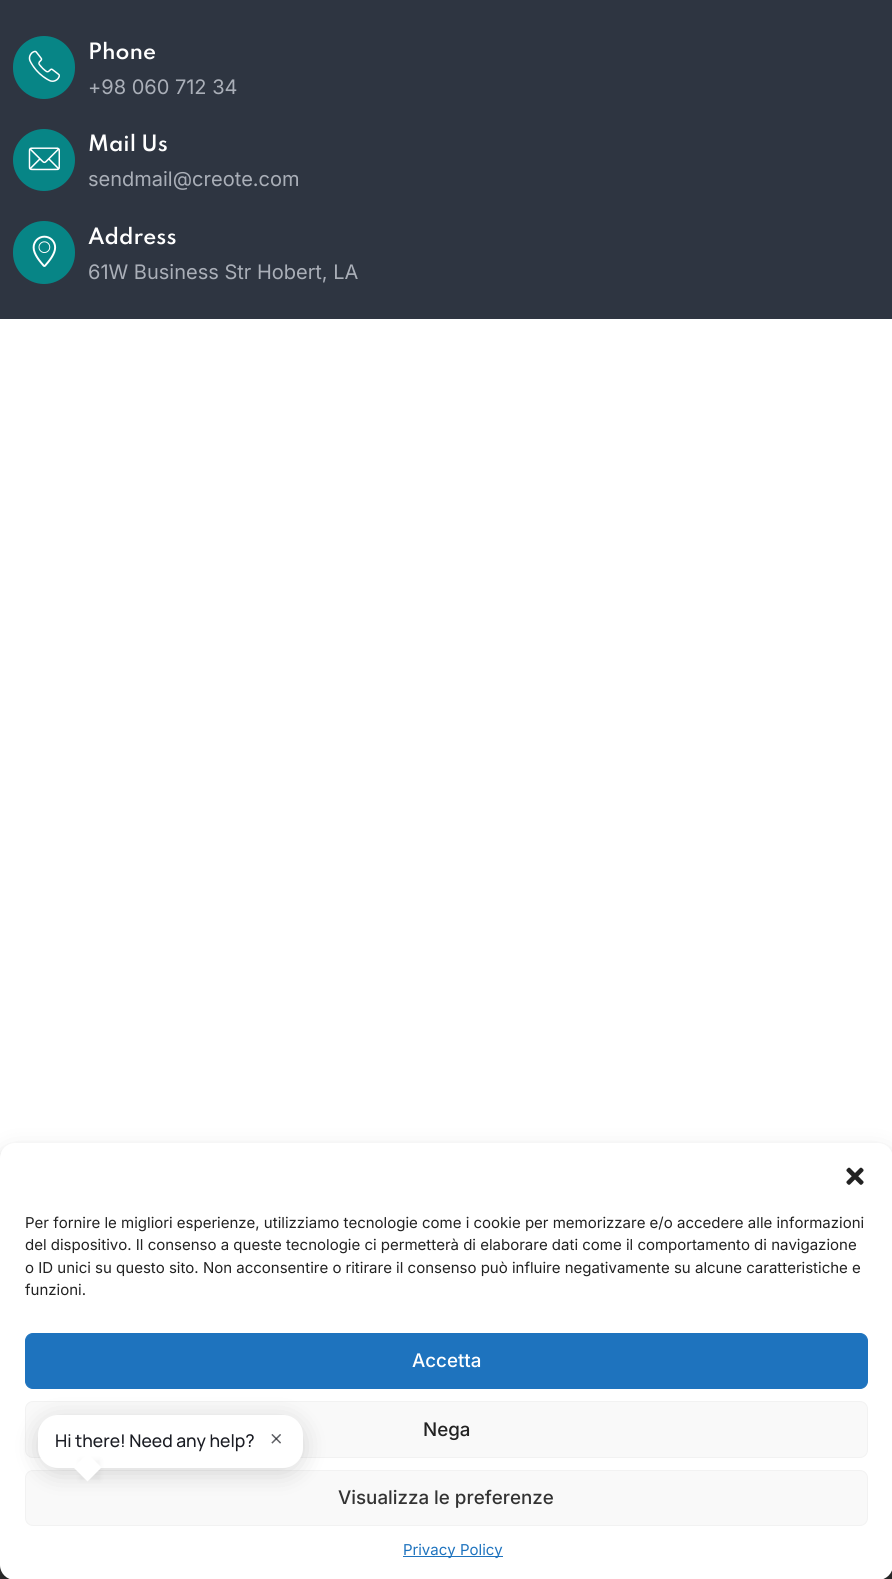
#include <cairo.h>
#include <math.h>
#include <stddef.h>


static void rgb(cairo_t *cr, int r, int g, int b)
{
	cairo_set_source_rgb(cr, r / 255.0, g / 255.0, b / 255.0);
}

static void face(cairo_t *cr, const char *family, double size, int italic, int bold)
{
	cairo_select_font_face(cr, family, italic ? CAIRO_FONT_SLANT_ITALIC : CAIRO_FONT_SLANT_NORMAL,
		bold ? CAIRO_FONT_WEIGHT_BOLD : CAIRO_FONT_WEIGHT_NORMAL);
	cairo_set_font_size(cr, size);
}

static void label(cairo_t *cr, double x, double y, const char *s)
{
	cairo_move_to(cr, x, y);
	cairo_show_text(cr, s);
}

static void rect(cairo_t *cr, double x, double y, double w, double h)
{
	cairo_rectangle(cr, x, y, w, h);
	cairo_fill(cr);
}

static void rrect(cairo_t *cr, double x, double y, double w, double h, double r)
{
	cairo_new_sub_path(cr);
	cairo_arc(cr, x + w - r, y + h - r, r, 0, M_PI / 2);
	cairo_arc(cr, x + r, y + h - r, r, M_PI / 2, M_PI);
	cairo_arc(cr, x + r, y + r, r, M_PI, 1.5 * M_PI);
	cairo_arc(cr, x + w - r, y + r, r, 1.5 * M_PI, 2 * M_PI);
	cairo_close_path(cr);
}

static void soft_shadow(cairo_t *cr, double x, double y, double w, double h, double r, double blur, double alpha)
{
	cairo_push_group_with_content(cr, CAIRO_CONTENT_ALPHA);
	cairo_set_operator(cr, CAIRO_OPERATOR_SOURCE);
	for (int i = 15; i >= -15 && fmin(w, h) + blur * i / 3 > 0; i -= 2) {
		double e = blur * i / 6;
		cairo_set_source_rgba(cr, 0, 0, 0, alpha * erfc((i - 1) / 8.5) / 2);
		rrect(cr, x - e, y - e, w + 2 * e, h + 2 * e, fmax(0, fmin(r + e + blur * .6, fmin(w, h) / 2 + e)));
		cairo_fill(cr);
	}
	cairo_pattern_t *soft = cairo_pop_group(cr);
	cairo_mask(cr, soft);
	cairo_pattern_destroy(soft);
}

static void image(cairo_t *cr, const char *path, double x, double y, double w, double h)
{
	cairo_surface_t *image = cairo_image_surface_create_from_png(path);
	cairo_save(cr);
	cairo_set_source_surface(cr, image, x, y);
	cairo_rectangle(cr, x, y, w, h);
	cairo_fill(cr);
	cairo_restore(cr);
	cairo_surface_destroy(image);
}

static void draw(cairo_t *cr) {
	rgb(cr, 255, 255, 255);
	cairo_paint(cr);
	rgb(cr, 46, 53, 65);
	rect(cr, 0, 0, 892, 319);
	rgb(cr, 7, 133, 134);
	rrect(cr, 13, 36, 62, 63, 31);
	cairo_fill(cr);
	image(cr, "image0.png", 28, 50, 32, 32);
	face(cr, "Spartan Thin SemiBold", 20, 0, 0);
	rgb(cr, 255, 255, 255);
	label(cr, 88, 59, "Phone");
	face(cr, "Inter", 20, 0, 0);
	rgb(cr, 170, 175, 184);
	label(cr, 88, 94, "+98 060 712 34");
	rgb(cr, 7, 133, 134);
	cairo_new_path(cr);
	cairo_arc(cr, 44, 160, 31, 0, 2 * M_PI);
	cairo_fill(cr);
	image(cr, "image1.png", 28, 147, 32, 24);
	face(cr, "Spartan Thin SemiBold", 20, 0, 0);
	rgb(cr, 255, 255, 255);
	label(cr, 88, 151, "Mail Us");
	face(cr, "Inter", 20, 0, 0);
	rgb(cr, 170, 175, 184);
	label(cr, 88, 186, "sendmail@creote.com");
	rgb(cr, 7, 133, 134);
	rrect(cr, 13, 221, 62, 63, 31);
	cairo_fill(cr);
	image(cr, "image2.png", 32, 235, 25, 32);
	face(cr, "Spartan Thin SemiBold", 20, 0, 0);
	rgb(cr, 255, 255, 255);
	label(cr, 88, 244, "Address");
	face(cr, "Inter", 20, 0, 0);
	rgb(cr, 170, 175, 184);
	label(cr, 88, 279, "61W Business Str Hobert, LA");
	rgb(cr, 51, 51, 51);
	rect(cr, 0, 1565, 892, 14);
	rgb(cr, 0, 0, 0);
	soft_shadow(cr, 0, 1150, 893, 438, 15, 4, 0.23);
	soft_shadow(cr, 0, 1155, 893, 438, 15, 12.5, 0.19);
	rgb(cr, 255, 255, 255);
	rrect(cr, 0, 1143, 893, 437, 15);
	cairo_fill(cr);
	image(cr, "image3.png", 846, 1167, 18, 18);
	face(cr, "Inter", 15, 0, 0);
	rgb(cr, 34, 34, 34);
	label(cr, 25, 1228, "Per fornire le migliori esperienze, utilizziamo tecnologie come i cookie per memorizzare e/o accedere alle informazioni");
	label(cr, 25, 1250, "del dispositivo. Il consenso a queste tecnologie ci permetterà di elaborare dati come il comportamento di navigazione");
	label(cr, 25, 1273, "o ID unici su questo sito. Non acconsentire o ritirare il consenso può influire negativamente su alcune caratteristiche e");
	label(cr, 25, 1295, "funzioni.");
	rgb(cr, 30, 115, 190);
	rrect(cr, 25.5, 1333.5, 842, 55, 7.5);
	cairo_fill_preserve(cr);
	cairo_set_line_width(cr, 1);
	cairo_stroke(cr);
	face(cr, "Inter Medium", 18.75, 0, 0);
	rgb(cr, 255, 255, 255);
	label(cr, 412, 1367, "Accetta");
	rgb(cr, 249, 249, 249);
	rrect(cr, 25.5, 1401.5, 842, 56, 7.5);
	cairo_fill_preserve(cr);
	rgb(cr, 242, 242, 242);
	cairo_stroke(cr);
	rgb(cr, 34, 34, 34);
	label(cr, 423, 1436, "Nega");
	rgb(cr, 249, 249, 249);
	rrect(cr, 25.5, 1470.5, 842, 55, 7.5);
	cairo_fill_preserve(cr);
	rgb(cr, 242, 242, 242);
	cairo_stroke(cr);
	rgb(cr, 51, 51, 51);
	label(cr, 338, 1504, "Visualizza le preferenze");
	rgb(cr, 30, 115, 190);
	rect(cr, 403, 1556, 100, 1);
	face(cr, "Inter", 15, 0, 0);
	label(cr, 403, 1555, "Privacy Policy");
	rgb(cr, 0, 0, 0);
	soft_shadow(cr, 38, 1420, 265, 53, 20, 12.5, 0.15);
	rgb(cr, 255, 255, 255);
	rrect(cr, 38, 1415, 265, 53, 20);
	cairo_fill(cr);
	rgb(cr, 0, 0, 0);
	soft_shadow(cr, 80, 1460, 20, 20, 0, 2.5, 0.05);
	face(cr, "Manrope Medium", 17.5, 0, 0);
	rgb(cr, 26, 28, 35);
	label(cr, 55, 1447, "Hi there! Need any help?");
	image(cr, "image4.png", 271, 1434, 10, 10);
	rgb(cr, 255, 255, 255);
	cairo_new_path(cr);
	cairo_move_to(cr, 87.5, 1453.5);
	cairo_line_to(cr, 101.5, 1467.5);
	cairo_line_to(cr, 87.5, 1481.5);
	cairo_line_to(cr, 73.5, 1467.5);
	cairo_close_path(cr);
	cairo_fill(cr);
}

int main(void) {
	cairo_surface_t *surface = cairo_image_surface_create(CAIRO_FORMAT_RGB24, 892, 1579);
	cairo_t *cr = cairo_create(surface);
	cairo_font_options_t *options = cairo_font_options_create();
	cairo_font_options_set_hint_metrics(options, CAIRO_HINT_METRICS_OFF);
	cairo_font_options_set_hint_style(options, CAIRO_HINT_STYLE_NONE);
	cairo_set_font_options(cr, options);
	cairo_set_miter_limit(cr, 4);
	draw(cr);
	cairo_surface_write_to_png(surface, "render.png");
	cairo_font_options_destroy(options);
	cairo_destroy(cr);
	cairo_surface_destroy(surface);
	return 0;
}
